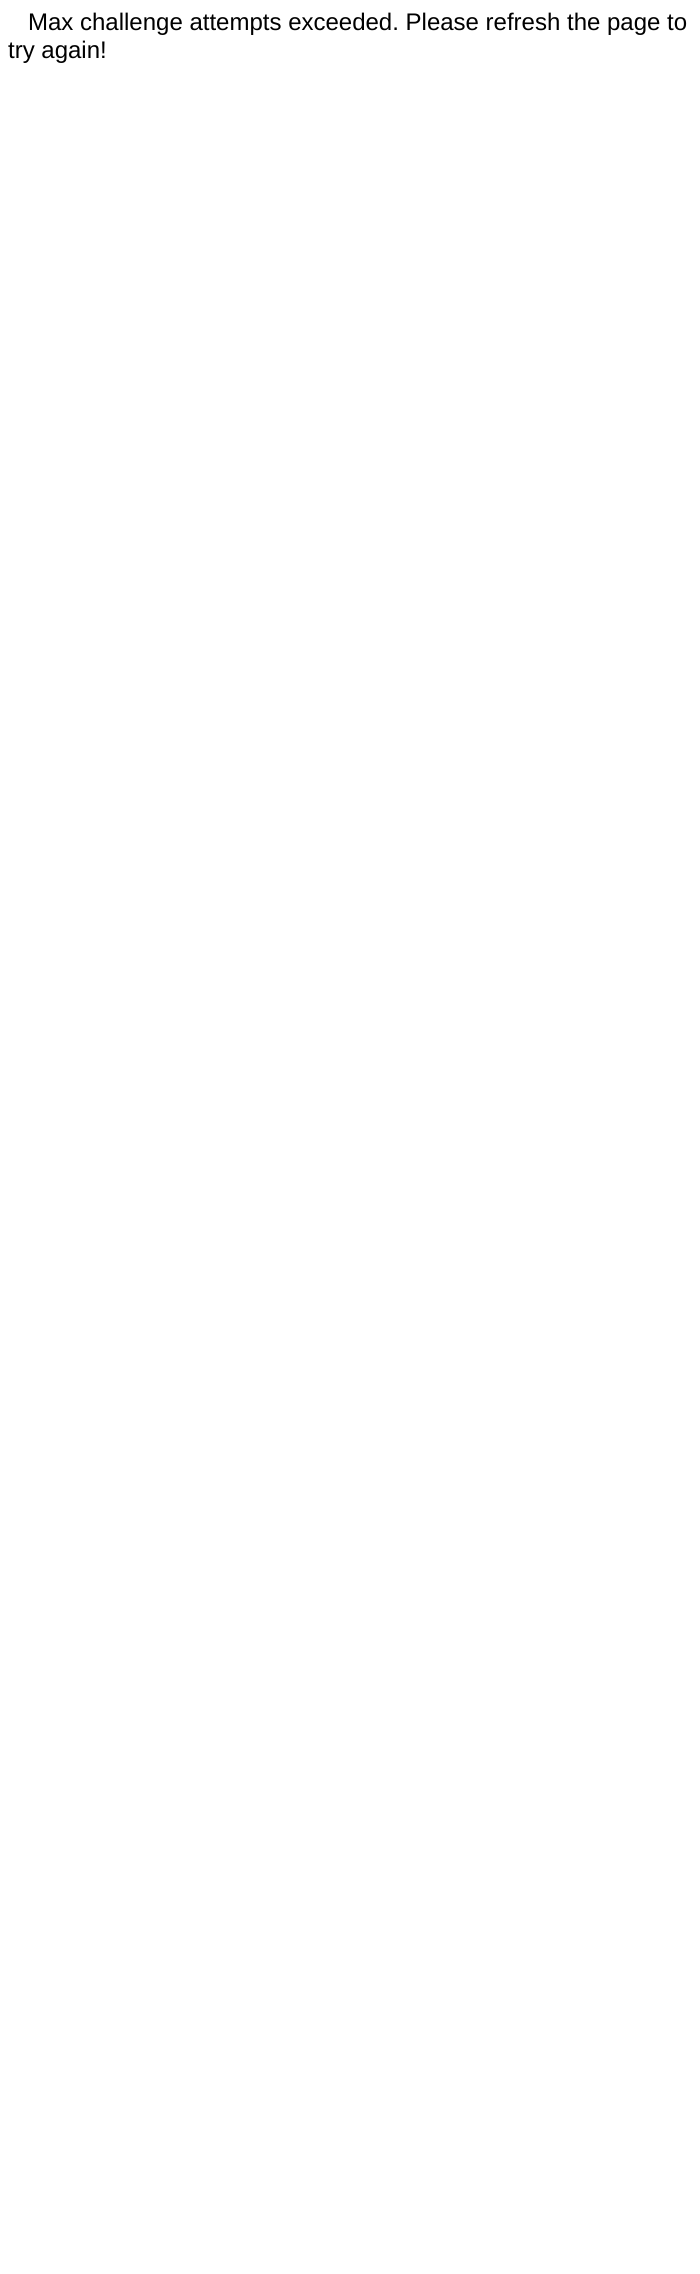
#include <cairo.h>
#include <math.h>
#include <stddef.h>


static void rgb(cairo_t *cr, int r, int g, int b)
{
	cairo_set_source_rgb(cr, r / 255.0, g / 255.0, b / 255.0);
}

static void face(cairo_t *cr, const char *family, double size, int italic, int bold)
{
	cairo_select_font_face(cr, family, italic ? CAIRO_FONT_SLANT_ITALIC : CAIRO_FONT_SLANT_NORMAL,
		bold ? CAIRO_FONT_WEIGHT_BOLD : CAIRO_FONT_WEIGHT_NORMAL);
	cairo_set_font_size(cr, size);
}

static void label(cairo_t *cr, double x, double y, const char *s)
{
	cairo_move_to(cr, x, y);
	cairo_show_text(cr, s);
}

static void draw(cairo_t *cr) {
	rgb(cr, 255, 255, 255);
	cairo_paint(cr);
	face(cr, "Liberation Sans", 24, 0, 0);
	rgb(cr, 0, 0, 0);
	label(cr, 28, 30, "Max challenge attempts exceeded. Please refresh the page to");
	label(cr, 8, 58, "try again!");
}

int main(void) {
	cairo_surface_t *surface = cairo_image_surface_create(CAIRO_FORMAT_RGB24, 700, 2274);
	cairo_t *cr = cairo_create(surface);
	cairo_font_options_t *options = cairo_font_options_create();
	cairo_font_options_set_hint_metrics(options, CAIRO_HINT_METRICS_OFF);
	cairo_font_options_set_hint_style(options, CAIRO_HINT_STYLE_NONE);
	cairo_set_font_options(cr, options);
	cairo_set_miter_limit(cr, 4);
	draw(cr);
	cairo_surface_write_to_png(surface, "render.png");
	cairo_font_options_destroy(options);
	cairo_destroy(cr);
	cairo_surface_destroy(surface);
	return 0;
}
